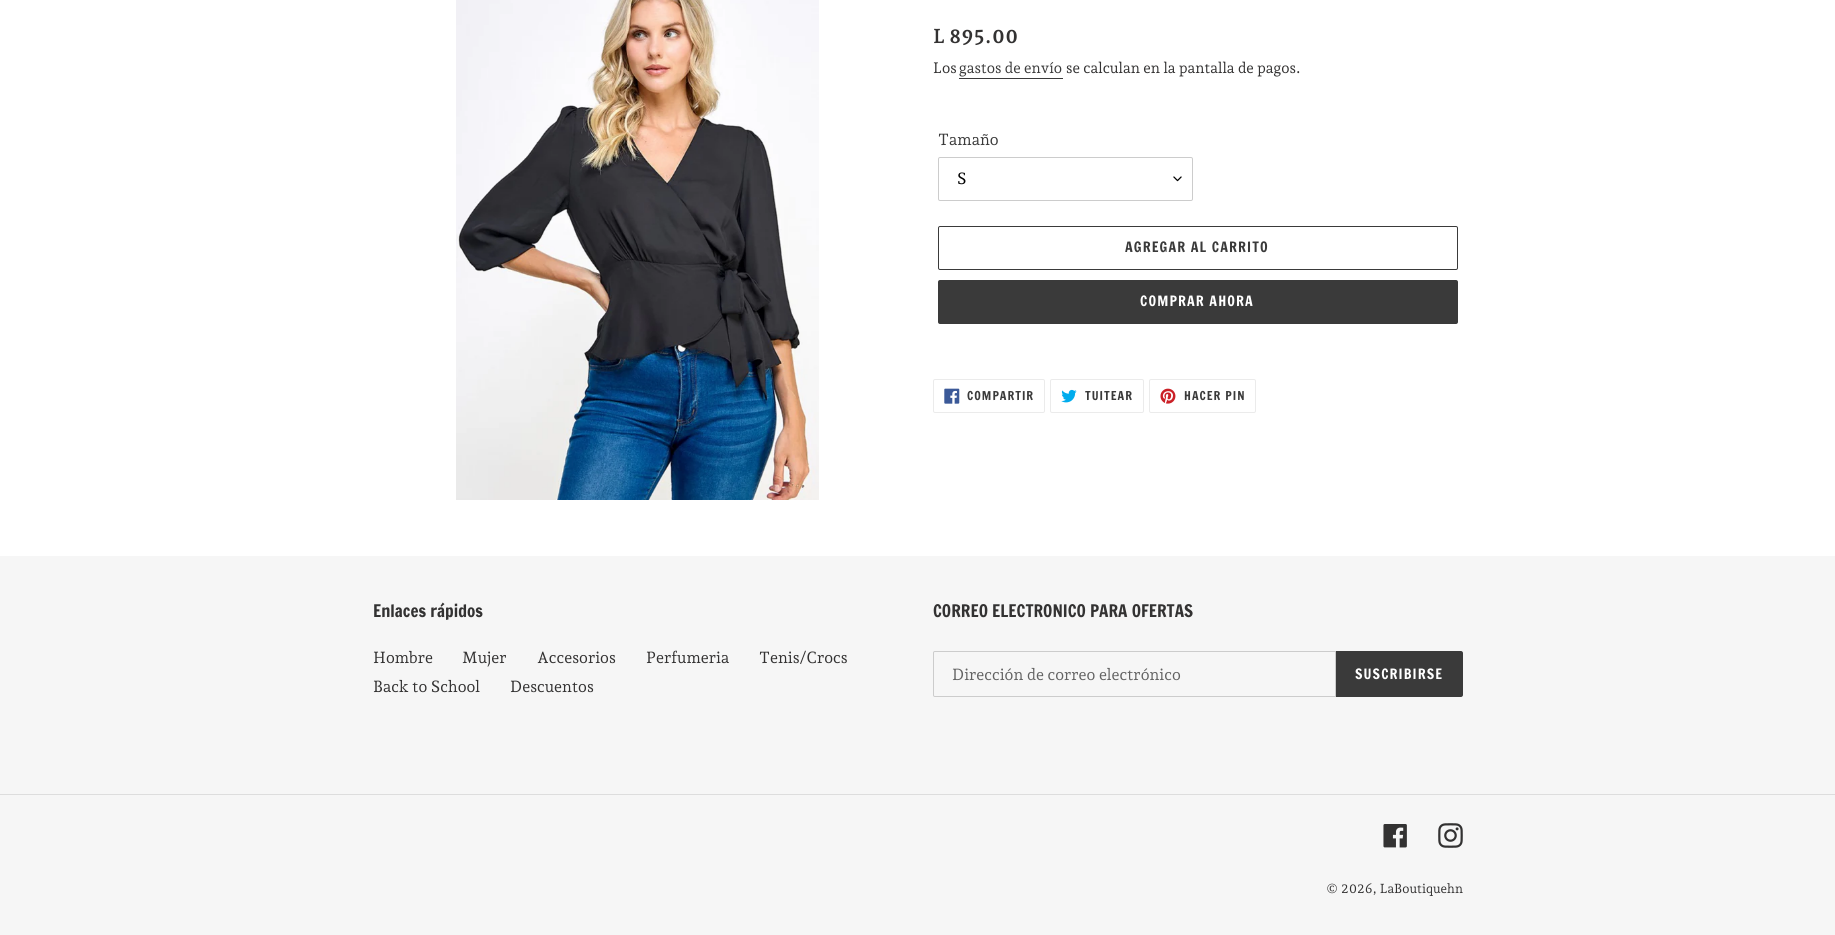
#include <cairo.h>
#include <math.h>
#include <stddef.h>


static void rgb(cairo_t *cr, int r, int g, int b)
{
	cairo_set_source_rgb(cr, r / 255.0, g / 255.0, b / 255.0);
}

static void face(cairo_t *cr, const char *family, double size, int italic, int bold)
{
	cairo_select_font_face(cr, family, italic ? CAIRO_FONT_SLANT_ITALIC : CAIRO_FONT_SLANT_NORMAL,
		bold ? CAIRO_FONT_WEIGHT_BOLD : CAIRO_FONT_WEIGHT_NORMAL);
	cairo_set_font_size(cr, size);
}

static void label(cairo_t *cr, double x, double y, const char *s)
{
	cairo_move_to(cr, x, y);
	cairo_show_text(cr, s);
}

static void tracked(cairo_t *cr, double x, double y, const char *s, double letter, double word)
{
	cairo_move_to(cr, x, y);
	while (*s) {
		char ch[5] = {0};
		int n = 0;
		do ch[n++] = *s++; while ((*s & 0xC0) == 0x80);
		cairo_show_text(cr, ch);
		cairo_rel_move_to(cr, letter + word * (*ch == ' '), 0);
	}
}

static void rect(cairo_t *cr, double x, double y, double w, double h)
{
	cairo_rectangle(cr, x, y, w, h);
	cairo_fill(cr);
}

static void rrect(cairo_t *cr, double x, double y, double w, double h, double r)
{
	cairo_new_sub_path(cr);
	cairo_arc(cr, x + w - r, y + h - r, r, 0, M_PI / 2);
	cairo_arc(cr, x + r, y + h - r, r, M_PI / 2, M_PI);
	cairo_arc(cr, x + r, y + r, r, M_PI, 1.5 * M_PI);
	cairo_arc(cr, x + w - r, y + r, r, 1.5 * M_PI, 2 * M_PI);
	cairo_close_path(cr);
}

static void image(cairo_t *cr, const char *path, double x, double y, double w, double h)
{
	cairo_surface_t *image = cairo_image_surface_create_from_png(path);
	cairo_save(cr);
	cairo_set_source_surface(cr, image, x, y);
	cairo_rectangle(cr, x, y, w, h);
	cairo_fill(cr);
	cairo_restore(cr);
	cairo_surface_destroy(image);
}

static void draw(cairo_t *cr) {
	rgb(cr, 255, 255, 255);
	cairo_paint(cr);
	image(cr, "image0.png", 456, 0, 363, 500);
	face(cr, "Andada Pro", 20, 0, 1);
	rgb(cr, 51, 50, 50);
	label(cr, 933, 43, "L 895.00");
	face(cr, "Andada Pro", 15, 0, 0);
	label(cr, 933, 73, "Los");
	rgb(cr, 58, 58, 58);
	label(cr, 959, 73, "gastos de envío");
	rect(cr, 959, 78, 104, 1);
	rgb(cr, 51, 50, 50);
	label(cr, 1066, 73, "se calculan en la pantalla de pagos.");
	face(cr, "Andada Pro", 16, 0, 0);
	rgb(cr, 58, 58, 58);
	label(cr, 938, 145, "Tamaño");
	image(cr, "image1.png", 1173, 176, 9, 6);
	rrect(cr, 938.5, 157.5, 254, 43, 1.5);
	rgb(cr, 204, 204, 204);
	cairo_set_line_width(cr, 1);
	cairo_stroke(cr);
	rgb(cr, 0, 0, 0);
	label(cr, 957, 184, "S");
	rrect(cr, 938.5, 226.5, 519, 43, 1.5);
	rgb(cr, 58, 58, 58);
	cairo_stroke(cr);
	face(cr, "Francois One", 14, 0, 0);
	tracked(cr, 1125, 252, "AGREGAR AL CARRITO", 1.1, 0);
	rrect(cr, 938, 280, 520, 44, 2);
	cairo_fill(cr);
	rgb(cr, 255, 255, 255);
	tracked(cr, 1140, 306, "COMPRAR AHORA", 1.1, 0);
	rrect(cr, 933.5, 379.5, 111, 33, 1.5);
	rgb(cr, 235, 235, 235);
	cairo_stroke(cr);
	image(cr, "image2.png", 944, 388, 16, 16);
	face(cr, "Francois One", 12, 0, 0);
	rgb(cr, 58, 58, 58);
	tracked(cr, 967, 400, "COMPARTIR", 1, 0);
	rrect(cr, 1050.5, 379.5, 93, 33, 1.5);
	rgb(cr, 235, 235, 235);
	cairo_stroke(cr);
	image(cr, "image3.png", 1061, 389, 16, 14);
	rgb(cr, 58, 58, 58);
	tracked(cr, 1085, 400, "TUITEAR", 1, 0);
	rrect(cr, 1149.5, 379.5, 106, 33, 1.5);
	rgb(cr, 235, 235, 235);
	cairo_stroke(cr);
	image(cr, "image4.png", 1160, 388, 16, 16);
	rgb(cr, 58, 58, 58);
	tracked(cr, 1184, 400, "HACER PIN", 1, 0);
	rgb(cr, 246, 246, 246);
	rect(cr, 0, 556, 1835, 379);
	face(cr, "Francois One", 17, 0, 0);
	rgb(cr, 51, 50, 50);
	label(cr, 373, 617, "Enlaces rápidos");
	face(cr, "Andada Pro", 16, 0, 0);
	label(cr, 373, 663, "Hombre");
	label(cr, 462, 663, "Mujer");
	label(cr, 537, 663, "Accesorios");
	label(cr, 646, 663, "Perfumeria");
	label(cr, 759, 663, "Tenis/Crocs");
	label(cr, 373, 692, "Back to School");
	label(cr, 510, 692, "Descuentos");
	face(cr, "Francois One", 17, 0, 0);
	label(cr, 933, 617, "CORREO ELECTRONICO PARA OFERTAS");
	cairo_new_path(cr);
	cairo_move_to(cr, 935, 651.5);
	cairo_line_to(cr, 1335.5, 651.5);
	cairo_line_to(cr, 1335.5, 696.5);
	cairo_line_to(cr, 935, 696.5);
	cairo_curve_to(cr, 934, 696.5, 933.5, 696, 933.5, 695);
	cairo_line_to(cr, 933.5, 653);
	cairo_curve_to(cr, 933.5, 652, 934, 651.5, 935, 651.5);
	cairo_close_path(cr);
	rgb(cr, 204, 204, 204);
	cairo_stroke(cr);
	face(cr, "Andada Pro", 16, 0, 0);
	rgb(cr, 98, 98, 98);
	label(cr, 952, 680, "Dirección de correo electrónico");
	rgb(cr, 58, 58, 58);
	cairo_new_path(cr);
	cairo_move_to(cr, 1336, 651);
	cairo_line_to(cr, 1461, 651);
	cairo_curve_to(cr, 1462, 651, 1463, 652, 1463, 653);
	cairo_line_to(cr, 1463, 695);
	cairo_curve_to(cr, 1463, 696, 1462, 697, 1461, 697);
	cairo_line_to(cr, 1336, 697);
	cairo_close_path(cr);
	cairo_fill(cr);
	face(cr, "Francois One", 14, 0, 0);
	rgb(cr, 255, 255, 255);
	tracked(cr, 1355, 679, "SUSCRIBIRSE", 1.1, 0);
	rgb(cr, 221, 221, 221);
	rect(cr, 0, 794, 1835, 1);
	image(cr, "image5.png", 1383, 824, 24, 24);
	image(cr, "image6.png", 1438, 823, 25, 25);
	face(cr, "Andada Pro", 13, 0, 0);
	rgb(cr, 51, 50, 50);
	label(cr, 1326, 893, "© 2026, LaBoutiquehn");
}

int main(void) {
	cairo_surface_t *surface = cairo_image_surface_create(CAIRO_FORMAT_RGB24, 1835, 935);
	cairo_t *cr = cairo_create(surface);
	cairo_font_options_t *options = cairo_font_options_create();
	cairo_font_options_set_hint_metrics(options, CAIRO_HINT_METRICS_OFF);
	cairo_font_options_set_hint_style(options, CAIRO_HINT_STYLE_NONE);
	cairo_set_font_options(cr, options);
	cairo_set_miter_limit(cr, 4);
	draw(cr);
	cairo_surface_write_to_png(surface, "render.png");
	cairo_font_options_destroy(options);
	cairo_destroy(cr);
	cairo_surface_destroy(surface);
	return 0;
}
